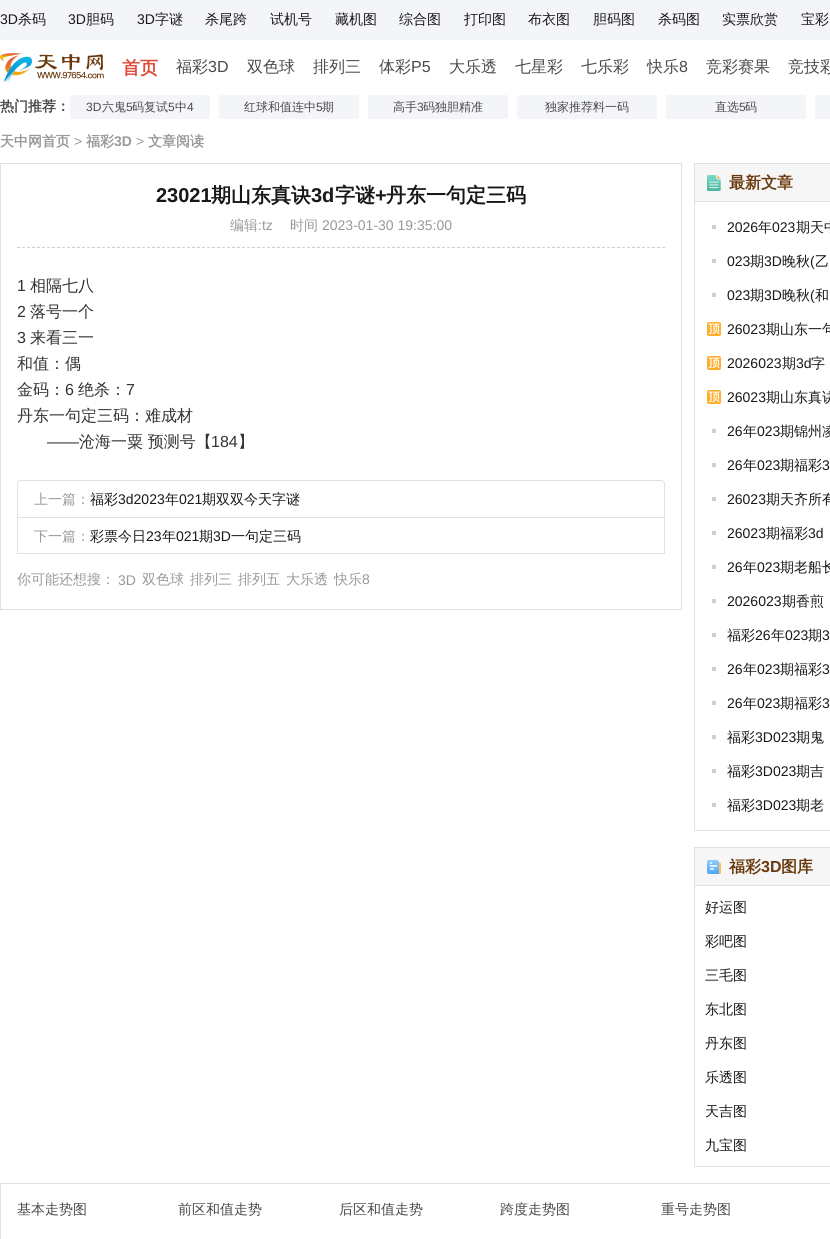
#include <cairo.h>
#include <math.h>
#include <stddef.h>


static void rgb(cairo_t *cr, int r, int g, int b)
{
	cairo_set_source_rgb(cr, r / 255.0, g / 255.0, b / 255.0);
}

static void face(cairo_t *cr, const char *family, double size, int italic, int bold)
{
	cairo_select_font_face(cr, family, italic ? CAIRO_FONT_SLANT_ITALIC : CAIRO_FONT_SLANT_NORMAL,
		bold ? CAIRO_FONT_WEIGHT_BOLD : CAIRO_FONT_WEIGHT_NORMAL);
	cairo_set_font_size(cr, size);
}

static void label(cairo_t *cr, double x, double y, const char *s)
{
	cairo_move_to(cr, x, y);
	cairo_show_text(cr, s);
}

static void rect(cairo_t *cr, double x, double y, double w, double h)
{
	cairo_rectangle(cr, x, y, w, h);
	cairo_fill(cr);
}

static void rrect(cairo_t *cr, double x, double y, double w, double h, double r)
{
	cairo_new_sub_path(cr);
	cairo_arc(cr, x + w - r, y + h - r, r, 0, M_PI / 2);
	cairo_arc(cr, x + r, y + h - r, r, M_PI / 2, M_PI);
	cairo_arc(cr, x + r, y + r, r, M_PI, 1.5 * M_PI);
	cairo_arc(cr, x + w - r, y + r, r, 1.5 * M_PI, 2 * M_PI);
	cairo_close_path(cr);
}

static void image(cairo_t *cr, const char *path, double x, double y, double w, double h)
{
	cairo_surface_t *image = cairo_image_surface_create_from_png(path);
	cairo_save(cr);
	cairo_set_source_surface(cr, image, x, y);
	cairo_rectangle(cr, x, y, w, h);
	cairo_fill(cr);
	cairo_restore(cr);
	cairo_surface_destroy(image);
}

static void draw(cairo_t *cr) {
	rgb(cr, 255, 255, 255);
	cairo_paint(cr);
	rgb(cr, 243, 245, 249);
	rect(cr, 0, 0, 830, 40);
	face(cr, "Liberation Sans", 14, 0, 0);
	rgb(cr, 24, 24, 24);
	label(cr, 0, 24, "3D");
	face(cr, "WenQuanYi Zen Hei Medium", 14, 0, 0);
	label(cr, 18, 24, "杀码");
	face(cr, "Liberation Sans", 14, 0, 0);
	label(cr, 68, 24, "3D");
	face(cr, "WenQuanYi Zen Hei Medium", 14, 0, 0);
	label(cr, 86, 24, "胆码");
	face(cr, "Liberation Sans", 14, 0, 0);
	label(cr, 137, 24, "3D");
	face(cr, "WenQuanYi Zen Hei Medium", 14, 0, 0);
	label(cr, 155, 24, "字谜");
	label(cr, 205, 24, "杀尾跨");
	label(cr, 270, 24, "试机号");
	label(cr, 335, 24, "藏机图");
	label(cr, 399, 24, "综合图");
	label(cr, 464, 24, "打印图");
	label(cr, 528, 24, "布衣图");
	label(cr, 593, 24, "胆码图");
	label(cr, 658, 24, "杀码图");
	label(cr, 722, 24, "实票欣赏");
	label(cr, 801, 24, "宝彩");
	image(cr, "image0.png", 0, 53, 104, 29);
	face(cr, "WenQuanYi Zen Hei", 18, 0, 1);
	rgb(cr, 226, 73, 57);
	label(cr, 122, 74, "首页");
	face(cr, "WenQuanYi Zen Hei Medium", 16, 0, 0);
	rgb(cr, 74, 74, 74);
	label(cr, 176, 72, "福彩");
	face(cr, "Liberation Sans", 16, 0, 0);
	label(cr, 208, 72, "3D");
	face(cr, "WenQuanYi Zen Hei Medium", 16, 0, 0);
	label(cr, 247, 72, "双色球");
	label(cr, 313, 72, "排列三");
	label(cr, 379, 72, "体彩");
	face(cr, "Liberation Sans", 16, 0, 0);
	label(cr, 411, 72, "P5");
	face(cr, "WenQuanYi Zen Hei Medium", 16, 0, 0);
	label(cr, 449, 72, "大乐透");
	label(cr, 515, 72, "七星彩");
	label(cr, 581, 72, "七乐彩");
	label(cr, 647, 72, "快乐");
	face(cr, "Liberation Sans", 16, 0, 0);
	label(cr, 679, 72, "8");
	face(cr, "WenQuanYi Zen Hei Medium", 16, 0, 0);
	label(cr, 706, 72, "竞彩赛果");
	label(cr, 788, 72, "竞技彩");
	face(cr, "WenQuanYi Zen Hei", 14, 0, 1);
	label(cr, 0, 111, "热门推荐：");
	rgb(cr, 243, 245, 249);
	rrect(cr, 70, 95, 140, 24, 2);
	cairo_fill(cr);
	face(cr, "Liberation Sans", 12, 0, 0);
	rgb(cr, 74, 74, 74);
	label(cr, 86, 111, "3D");
	face(cr, "WenQuanYi Zen Hei Medium", 12, 0, 0);
	label(cr, 102, 111, "六鬼");
	face(cr, "Liberation Sans", 12, 0, 0);
	label(cr, 126, 111, "5");
	face(cr, "WenQuanYi Zen Hei Medium", 12, 0, 0);
	label(cr, 132, 111, "码复试");
	face(cr, "Liberation Sans", 12, 0, 0);
	label(cr, 168, 111, "5");
	face(cr, "WenQuanYi Zen Hei Medium", 12, 0, 0);
	label(cr, 175, 111, "中");
	face(cr, "Liberation Sans", 12, 0, 0);
	label(cr, 187, 111, "4");
	rgb(cr, 243, 245, 249);
	rrect(cr, 219, 95, 140, 24, 2);
	cairo_fill(cr);
	face(cr, "WenQuanYi Zen Hei Medium", 12, 0, 0);
	rgb(cr, 74, 74, 74);
	label(cr, 244, 111, "红球和值连中");
	face(cr, "Liberation Sans", 12, 0, 0);
	label(cr, 316, 111, "5");
	face(cr, "WenQuanYi Zen Hei Medium", 12, 0, 0);
	label(cr, 322, 111, "期");
	rgb(cr, 243, 245, 249);
	rrect(cr, 368, 95, 140, 24, 2);
	cairo_fill(cr);
	rgb(cr, 74, 74, 74);
	label(cr, 393, 111, "高手");
	face(cr, "Liberation Sans", 12, 0, 0);
	label(cr, 417, 111, "3");
	face(cr, "WenQuanYi Zen Hei Medium", 12, 0, 0);
	label(cr, 423, 111, "码独胆精准");
	rgb(cr, 243, 245, 249);
	rrect(cr, 517, 95, 140, 24, 2);
	cairo_fill(cr);
	rgb(cr, 74, 74, 74);
	label(cr, 545, 111, "独家推荐料一码");
	rgb(cr, 243, 245, 249);
	rrect(cr, 666, 95, 140, 24, 2);
	cairo_fill(cr);
	rgb(cr, 74, 74, 74);
	label(cr, 715, 111, "直选");
	face(cr, "Liberation Sans", 12, 0, 0);
	label(cr, 739, 111, "5");
	face(cr, "WenQuanYi Zen Hei Medium", 12, 0, 0);
	label(cr, 745, 111, "码");
	rgb(cr, 243, 245, 249);
	rrect(cr, 815, 95, 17, 24, 2);
	cairo_fill(cr);
	face(cr, "WenQuanYi Zen Hei", 14, 0, 1);
	rgb(cr, 153, 153, 153);
	label(cr, 0, 146, "天中网首页");
	face(cr, "Liberation Sans", 14, 0, 0);
	label(cr, 74, 146, ">");
	face(cr, "WenQuanYi Zen Hei", 14, 0, 1);
	label(cr, 86, 146, "福彩");
	face(cr, "Liberation Sans", 14, 0, 1);
	label(cr, 114, 146, "3D");
	face(cr, "Liberation Sans", 14, 0, 0);
	label(cr, 136, 146, ">");
	face(cr, "WenQuanYi Zen Hei", 14, 0, 1);
	label(cr, 148, 146, "文章阅读");
	rgb(cr, 224, 224, 224);
	rect(cr, 0, 163, 682, 1);
	rect(cr, 681, 163, 1, 447);
	rect(cr, 0, 163, 1, 317);
	face(cr, "Liberation Sans", 20, 0, 1);
	rgb(cr, 24, 24, 24);
	label(cr, 156, 202, "23021");
	face(cr, "WenQuanYi Zen Hei", 20, 0, 1);
	label(cr, 211, 202, "期山东真诀");
	face(cr, "Liberation Sans", 20, 0, 1);
	label(cr, 311, 202, "3d");
	face(cr, "WenQuanYi Zen Hei", 20, 0, 1);
	label(cr, 335, 202, "字谜");
	face(cr, "Liberation Sans", 20, 0, 1);
	label(cr, 375, 202, "+");
	face(cr, "WenQuanYi Zen Hei", 20, 0, 1);
	label(cr, 386, 202, "丹东一句定三码");
	cairo_new_path(cr);
	cairo_move_to(cr, 17, 247.5);
	cairo_line_to(cr, 665, 247.5);
	rgb(cr, 206, 206, 206);
	cairo_set_line_width(cr, 1);
	cairo_set_dash(cr, (double[]){3, 2}, 2, 0);
	cairo_stroke(cr);
	face(cr, "WenQuanYi Zen Hei Medium", 14, 0, 0);
	rgb(cr, 153, 153, 153);
	label(cr, 230, 230, "编辑");
	face(cr, "Liberation Sans", 14, 0, 0);
	label(cr, 258, 230, ":tz");
	face(cr, "WenQuanYi Zen Hei Medium", 14, 0, 0);
	label(cr, 290, 230, "时间");
	face(cr, "Liberation Sans", 14, 0, 0);
	label(cr, 322, 230, "2023-01-30 19:35:00");
	face(cr, "Liberation Sans", 16, 0, 0);
	rgb(cr, 51, 51, 51);
	label(cr, 17, 291, "1");
	face(cr, "WenQuanYi Zen Hei Medium", 16, 0, 0);
	label(cr, 30, 291, "相隔七八");
	face(cr, "Liberation Sans", 16, 0, 0);
	label(cr, 17, 317, "2");
	face(cr, "WenQuanYi Zen Hei Medium", 16, 0, 0);
	label(cr, 30, 317, "落号一个");
	face(cr, "Liberation Sans", 16, 0, 0);
	label(cr, 17, 343, "3");
	face(cr, "WenQuanYi Zen Hei Medium", 16, 0, 0);
	label(cr, 30, 343, "来看三一");
	label(cr, 17, 369, "和值：偶");
	label(cr, 17, 395, "金码：");
	face(cr, "Liberation Sans", 16, 0, 0);
	label(cr, 65, 395, "6");
	face(cr, "WenQuanYi Zen Hei Medium", 16, 0, 0);
	label(cr, 78, 395, "绝杀：");
	face(cr, "Liberation Sans", 16, 0, 0);
	label(cr, 126, 395, "7");
	face(cr, "WenQuanYi Zen Hei Medium", 16, 0, 0);
	label(cr, 17, 421, "丹东一句定三码：难成材");
	face(cr, "Liberation Sans", 16, 0, 0);
	label(cr, 47, 447, "——");
	face(cr, "WenQuanYi Zen Hei Medium", 16, 0, 0);
	label(cr, 79, 447, "沧海一粟 预测号【");
	face(cr, "Liberation Sans", 16, 0, 0);
	label(cr, 211, 447, "184");
	face(cr, "WenQuanYi Zen Hei Medium", 16, 0, 0);
	label(cr, 238, 447, "】");
	rgb(cr, 224, 224, 224);
	rect(cr, 0, 609, 682, 1);
	rect(cr, 0, 480, 1, 130);
	cairo_new_path(cr);
	cairo_move_to(cr, 21, 480.5);
	cairo_line_to(cr, 661, 480.5);
	cairo_curve_to(cr, 663, 480.5, 664.5, 482, 664.5, 484);
	cairo_line_to(cr, 664.5, 553.5);
	cairo_line_to(cr, 17.5, 553.5);
	cairo_line_to(cr, 17.5, 484);
	cairo_curve_to(cr, 17.5, 482, 19, 480.5, 21, 480.5);
	cairo_close_path(cr);
	cairo_set_dash(cr, NULL, 0, 0);
	cairo_stroke(cr);
	face(cr, "WenQuanYi Zen Hei Medium", 14, 0, 0);
	rgb(cr, 153, 153, 153);
	label(cr, 34, 504, "上一篇：");
	rgb(cr, 24, 24, 24);
	label(cr, 90, 504, "福彩");
	face(cr, "Liberation Sans", 14, 0, 0);
	label(cr, 118, 504, "3d2023");
	face(cr, "WenQuanYi Zen Hei Medium", 14, 0, 0);
	label(cr, 165, 504, "年");
	face(cr, "Liberation Sans", 14, 0, 0);
	label(cr, 179, 504, "021");
	face(cr, "WenQuanYi Zen Hei Medium", 14, 0, 0);
	label(cr, 202, 504, "期双双今天字谜");
	rgb(cr, 224, 224, 224);
	rect(cr, 18, 517, 646, 1);
	rgb(cr, 153, 153, 153);
	label(cr, 34, 541, "下一篇：");
	rgb(cr, 24, 24, 24);
	label(cr, 90, 541, "彩票今日");
	face(cr, "Liberation Sans", 14, 0, 0);
	label(cr, 146, 541, "23");
	face(cr, "WenQuanYi Zen Hei Medium", 14, 0, 0);
	label(cr, 162, 541, "年");
	face(cr, "Liberation Sans", 14, 0, 0);
	label(cr, 176, 541, "021");
	face(cr, "WenQuanYi Zen Hei Medium", 14, 0, 0);
	label(cr, 199, 541, "期");
	face(cr, "Liberation Sans", 14, 0, 0);
	label(cr, 213, 541, "3D");
	face(cr, "WenQuanYi Zen Hei Medium", 14, 0, 0);
	label(cr, 231, 541, "一句定三码");
	rgb(cr, 153, 153, 153);
	label(cr, 17, 584, "你可能还想搜：");
	face(cr, "Liberation Sans", 14, 0, 0);
	label(cr, 118, 585, "3D");
	face(cr, "WenQuanYi Zen Hei Medium", 14, 0, 0);
	label(cr, 142, 584, "双色球");
	label(cr, 190, 584, "排列三");
	label(cr, 238, 584, "排列五");
	label(cr, 286, 584, "大乐透");
	label(cr, 334, 584, "快乐");
	face(cr, "Liberation Sans", 14, 0, 0);
	label(cr, 362, 584, "8");
	cairo_rectangle(cr, 694.5, 163.5, 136, 667);
	rgb(cr, 224, 224, 224);
	cairo_stroke(cr);
	rgb(cr, 246, 246, 246);
	rect(cr, 695, 164, 135, 37);
	rgb(cr, 224, 224, 224);
	rect(cr, 695, 201, 135, 1);
	image(cr, "image1.png", 707, 175, 14, 16);
	face(cr, "WenQuanYi Zen Hei", 16, 0, 1);
	rgb(cr, 105, 57, 13);
	label(cr, 729, 188, "最新文章");
	rgb(cr, 206, 206, 206);
	rect(cr, 712, 225, 4, 4);
	face(cr, "Liberation Sans", 14, 0, 0);
	rgb(cr, 24, 24, 24);
	label(cr, 727, 232, "2026");
	face(cr, "WenQuanYi Zen Hei Medium", 14, 0, 0);
	label(cr, 758, 232, "年");
	face(cr, "Liberation Sans", 14, 0, 0);
	label(cr, 772, 232, "023");
	face(cr, "WenQuanYi Zen Hei Medium", 14, 0, 0);
	label(cr, 796, 232, "期天中");
	rgb(cr, 206, 206, 206);
	rect(cr, 712, 259, 4, 4);
	face(cr, "Liberation Sans", 14, 0, 0);
	rgb(cr, 24, 24, 24);
	label(cr, 727, 266, "023");
	face(cr, "WenQuanYi Zen Hei Medium", 14, 0, 0);
	label(cr, 750, 266, "期");
	face(cr, "Liberation Sans", 14, 0, 0);
	label(cr, 764, 266, "3D");
	face(cr, "WenQuanYi Zen Hei Medium", 14, 0, 0);
	label(cr, 782, 266, "晚秋");
	face(cr, "Liberation Sans", 14, 0, 0);
	label(cr, 810, 266, "(");
	face(cr, "WenQuanYi Zen Hei Medium", 14, 0, 0);
	label(cr, 815, 266, "乙");
	rgb(cr, 206, 206, 206);
	rect(cr, 712, 293, 4, 4);
	face(cr, "Liberation Sans", 14, 0, 0);
	rgb(cr, 24, 24, 24);
	label(cr, 727, 300, "023");
	face(cr, "WenQuanYi Zen Hei Medium", 14, 0, 0);
	label(cr, 750, 300, "期");
	face(cr, "Liberation Sans", 14, 0, 0);
	label(cr, 764, 300, "3D");
	face(cr, "WenQuanYi Zen Hei Medium", 14, 0, 0);
	label(cr, 782, 300, "晚秋");
	face(cr, "Liberation Sans", 14, 0, 0);
	label(cr, 810, 300, "(");
	face(cr, "WenQuanYi Zen Hei Medium", 14, 0, 0);
	label(cr, 815, 300, "和");
	image(cr, "image2.png", 707, 322, 14, 14);
	face(cr, "Liberation Sans", 14, 0, 0);
	label(cr, 727, 334, "26023");
	face(cr, "WenQuanYi Zen Hei Medium", 14, 0, 0);
	label(cr, 766, 334, "期山东一句");
	image(cr, "image2.png", 707, 356, 14, 14);
	face(cr, "Liberation Sans", 14, 0, 0);
	label(cr, 727, 368, "2026023");
	face(cr, "WenQuanYi Zen Hei Medium", 14, 0, 0);
	label(cr, 782, 368, "期");
	face(cr, "Liberation Sans", 14, 0, 0);
	label(cr, 796, 368, "3d");
	face(cr, "WenQuanYi Zen Hei Medium", 14, 0, 0);
	label(cr, 811, 368, "字");
	image(cr, "image2.png", 707, 390, 14, 14);
	face(cr, "Liberation Sans", 14, 0, 0);
	label(cr, 727, 402, "26023");
	face(cr, "WenQuanYi Zen Hei Medium", 14, 0, 0);
	label(cr, 766, 402, "期山东真诀");
	rgb(cr, 206, 206, 206);
	rect(cr, 712, 429, 4, 4);
	face(cr, "Liberation Sans", 14, 0, 0);
	rgb(cr, 24, 24, 24);
	label(cr, 727, 436, "26");
	face(cr, "WenQuanYi Zen Hei Medium", 14, 0, 0);
	label(cr, 743, 436, "年");
	face(cr, "Liberation Sans", 14, 0, 0);
	label(cr, 757, 436, "023");
	face(cr, "WenQuanYi Zen Hei Medium", 14, 0, 0);
	label(cr, 780, 436, "期锦州凌");
	rgb(cr, 206, 206, 206);
	rect(cr, 712, 463, 4, 4);
	face(cr, "Liberation Sans", 14, 0, 0);
	rgb(cr, 24, 24, 24);
	label(cr, 727, 470, "26");
	face(cr, "WenQuanYi Zen Hei Medium", 14, 0, 0);
	label(cr, 743, 470, "年");
	face(cr, "Liberation Sans", 14, 0, 0);
	label(cr, 757, 470, "023");
	face(cr, "WenQuanYi Zen Hei Medium", 14, 0, 0);
	label(cr, 780, 470, "期福彩");
	face(cr, "Liberation Sans", 14, 0, 0);
	label(cr, 822, 470, "3");
	rgb(cr, 206, 206, 206);
	rect(cr, 712, 497, 4, 4);
	rgb(cr, 24, 24, 24);
	label(cr, 727, 504, "26023");
	face(cr, "WenQuanYi Zen Hei Medium", 14, 0, 0);
	label(cr, 766, 504, "期天齐所有");
	rgb(cr, 206, 206, 206);
	rect(cr, 712, 531, 4, 4);
	face(cr, "Liberation Sans", 14, 0, 0);
	rgb(cr, 24, 24, 24);
	label(cr, 727, 538, "26023");
	face(cr, "WenQuanYi Zen Hei Medium", 14, 0, 0);
	label(cr, 766, 538, "期福彩");
	face(cr, "Liberation Sans", 14, 0, 0);
	label(cr, 808, 538, "3d");
	rgb(cr, 206, 206, 206);
	rect(cr, 712, 565, 4, 4);
	rgb(cr, 24, 24, 24);
	label(cr, 727, 572, "26");
	face(cr, "WenQuanYi Zen Hei Medium", 14, 0, 0);
	label(cr, 743, 572, "年");
	face(cr, "Liberation Sans", 14, 0, 0);
	label(cr, 757, 572, "023");
	face(cr, "WenQuanYi Zen Hei Medium", 14, 0, 0);
	label(cr, 780, 572, "期老船长");
	rgb(cr, 206, 206, 206);
	rect(cr, 712, 599, 4, 4);
	face(cr, "Liberation Sans", 14, 0, 0);
	rgb(cr, 24, 24, 24);
	label(cr, 727, 606, "2026023");
	face(cr, "WenQuanYi Zen Hei Medium", 14, 0, 0);
	label(cr, 782, 606, "期香煎");
	rgb(cr, 206, 206, 206);
	rect(cr, 712, 633, 4, 4);
	rgb(cr, 24, 24, 24);
	label(cr, 727, 640, "福彩");
	face(cr, "Liberation Sans", 14, 0, 0);
	label(cr, 755, 640, "26");
	face(cr, "WenQuanYi Zen Hei Medium", 14, 0, 0);
	label(cr, 771, 640, "年");
	face(cr, "Liberation Sans", 14, 0, 0);
	label(cr, 785, 640, "023");
	face(cr, "WenQuanYi Zen Hei Medium", 14, 0, 0);
	label(cr, 808, 640, "期");
	face(cr, "Liberation Sans", 14, 0, 0);
	label(cr, 822, 640, "3");
	rgb(cr, 206, 206, 206);
	rect(cr, 712, 667, 4, 4);
	rgb(cr, 24, 24, 24);
	label(cr, 727, 674, "26");
	face(cr, "WenQuanYi Zen Hei Medium", 14, 0, 0);
	label(cr, 743, 674, "年");
	face(cr, "Liberation Sans", 14, 0, 0);
	label(cr, 757, 674, "023");
	face(cr, "WenQuanYi Zen Hei Medium", 14, 0, 0);
	label(cr, 780, 674, "期福彩");
	face(cr, "Liberation Sans", 14, 0, 0);
	label(cr, 822, 674, "3");
	rgb(cr, 206, 206, 206);
	rect(cr, 712, 701, 4, 4);
	rgb(cr, 24, 24, 24);
	label(cr, 727, 708, "26");
	face(cr, "WenQuanYi Zen Hei Medium", 14, 0, 0);
	label(cr, 743, 708, "年");
	face(cr, "Liberation Sans", 14, 0, 0);
	label(cr, 757, 708, "023");
	face(cr, "WenQuanYi Zen Hei Medium", 14, 0, 0);
	label(cr, 780, 708, "期福彩");
	face(cr, "Liberation Sans", 14, 0, 0);
	label(cr, 822, 708, "3");
	rgb(cr, 206, 206, 206);
	rect(cr, 712, 735, 4, 4);
	face(cr, "WenQuanYi Zen Hei Medium", 14, 0, 0);
	rgb(cr, 24, 24, 24);
	label(cr, 727, 742, "福彩");
	face(cr, "Liberation Sans", 14, 0, 0);
	label(cr, 755, 742, "3D023");
	face(cr, "WenQuanYi Zen Hei Medium", 14, 0, 0);
	label(cr, 796, 742, "期鬼");
	rgb(cr, 206, 206, 206);
	rect(cr, 712, 769, 4, 4);
	rgb(cr, 24, 24, 24);
	label(cr, 727, 776, "福彩");
	face(cr, "Liberation Sans", 14, 0, 0);
	label(cr, 755, 776, "3D023");
	face(cr, "WenQuanYi Zen Hei Medium", 14, 0, 0);
	label(cr, 796, 776, "期吉");
	rgb(cr, 206, 206, 206);
	rect(cr, 712, 803, 4, 4);
	rgb(cr, 24, 24, 24);
	label(cr, 727, 810, "福彩");
	face(cr, "Liberation Sans", 14, 0, 0);
	label(cr, 755, 810, "3D023");
	face(cr, "WenQuanYi Zen Hei Medium", 14, 0, 0);
	label(cr, 796, 810, "期老");
	cairo_rectangle(cr, 694.5, 847.5, 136, 319);
	rgb(cr, 224, 224, 224);
	cairo_stroke(cr);
	rgb(cr, 246, 246, 246);
	rect(cr, 695, 848, 135, 37);
	rgb(cr, 224, 224, 224);
	rect(cr, 695, 885, 135, 1);
	image(cr, "image3.png", 707, 860, 14, 14);
	face(cr, "WenQuanYi Zen Hei", 16, 0, 1);
	rgb(cr, 105, 57, 13);
	label(cr, 729, 872, "福彩");
	face(cr, "Liberation Sans", 16, 0, 1);
	label(cr, 761, 872, "3D");
	face(cr, "WenQuanYi Zen Hei", 16, 0, 1);
	label(cr, 781, 872, "图库");
	face(cr, "WenQuanYi Zen Hei Medium", 14, 0, 0);
	rgb(cr, 24, 24, 24);
	label(cr, 705, 912, "好运图");
	label(cr, 705, 946, "彩吧图");
	label(cr, 705, 980, "三毛图");
	label(cr, 705, 1014, "东北图");
	label(cr, 705, 1048, "丹东图");
	label(cr, 705, 1082, "乐透图");
	label(cr, 705, 1116, "天吉图");
	label(cr, 705, 1150, "九宝图");
	cairo_rectangle(cr, 0.5, 1183.5, 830, 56);
	rgb(cr, 224, 224, 224);
	cairo_stroke(cr);
	rgb(cr, 74, 74, 74);
	label(cr, 17, 1214, "基本走势图");
	label(cr, 178, 1214, "前区和值走势");
	label(cr, 339, 1214, "后区和值走势");
	label(cr, 500, 1214, "跨度走势图");
	label(cr, 661, 1214, "重号走势图");
}

int main(void) {
	cairo_surface_t *surface = cairo_image_surface_create(CAIRO_FORMAT_RGB24, 830, 1239);
	cairo_t *cr = cairo_create(surface);
	cairo_font_options_t *options = cairo_font_options_create();
	cairo_font_options_set_hint_metrics(options, CAIRO_HINT_METRICS_OFF);
	cairo_font_options_set_hint_style(options, CAIRO_HINT_STYLE_NONE);
	cairo_set_font_options(cr, options);
	cairo_set_miter_limit(cr, 4);
	draw(cr);
	cairo_surface_write_to_png(surface, "render.png");
	cairo_font_options_destroy(options);
	cairo_destroy(cr);
	cairo_surface_destroy(surface);
	return 0;
}
